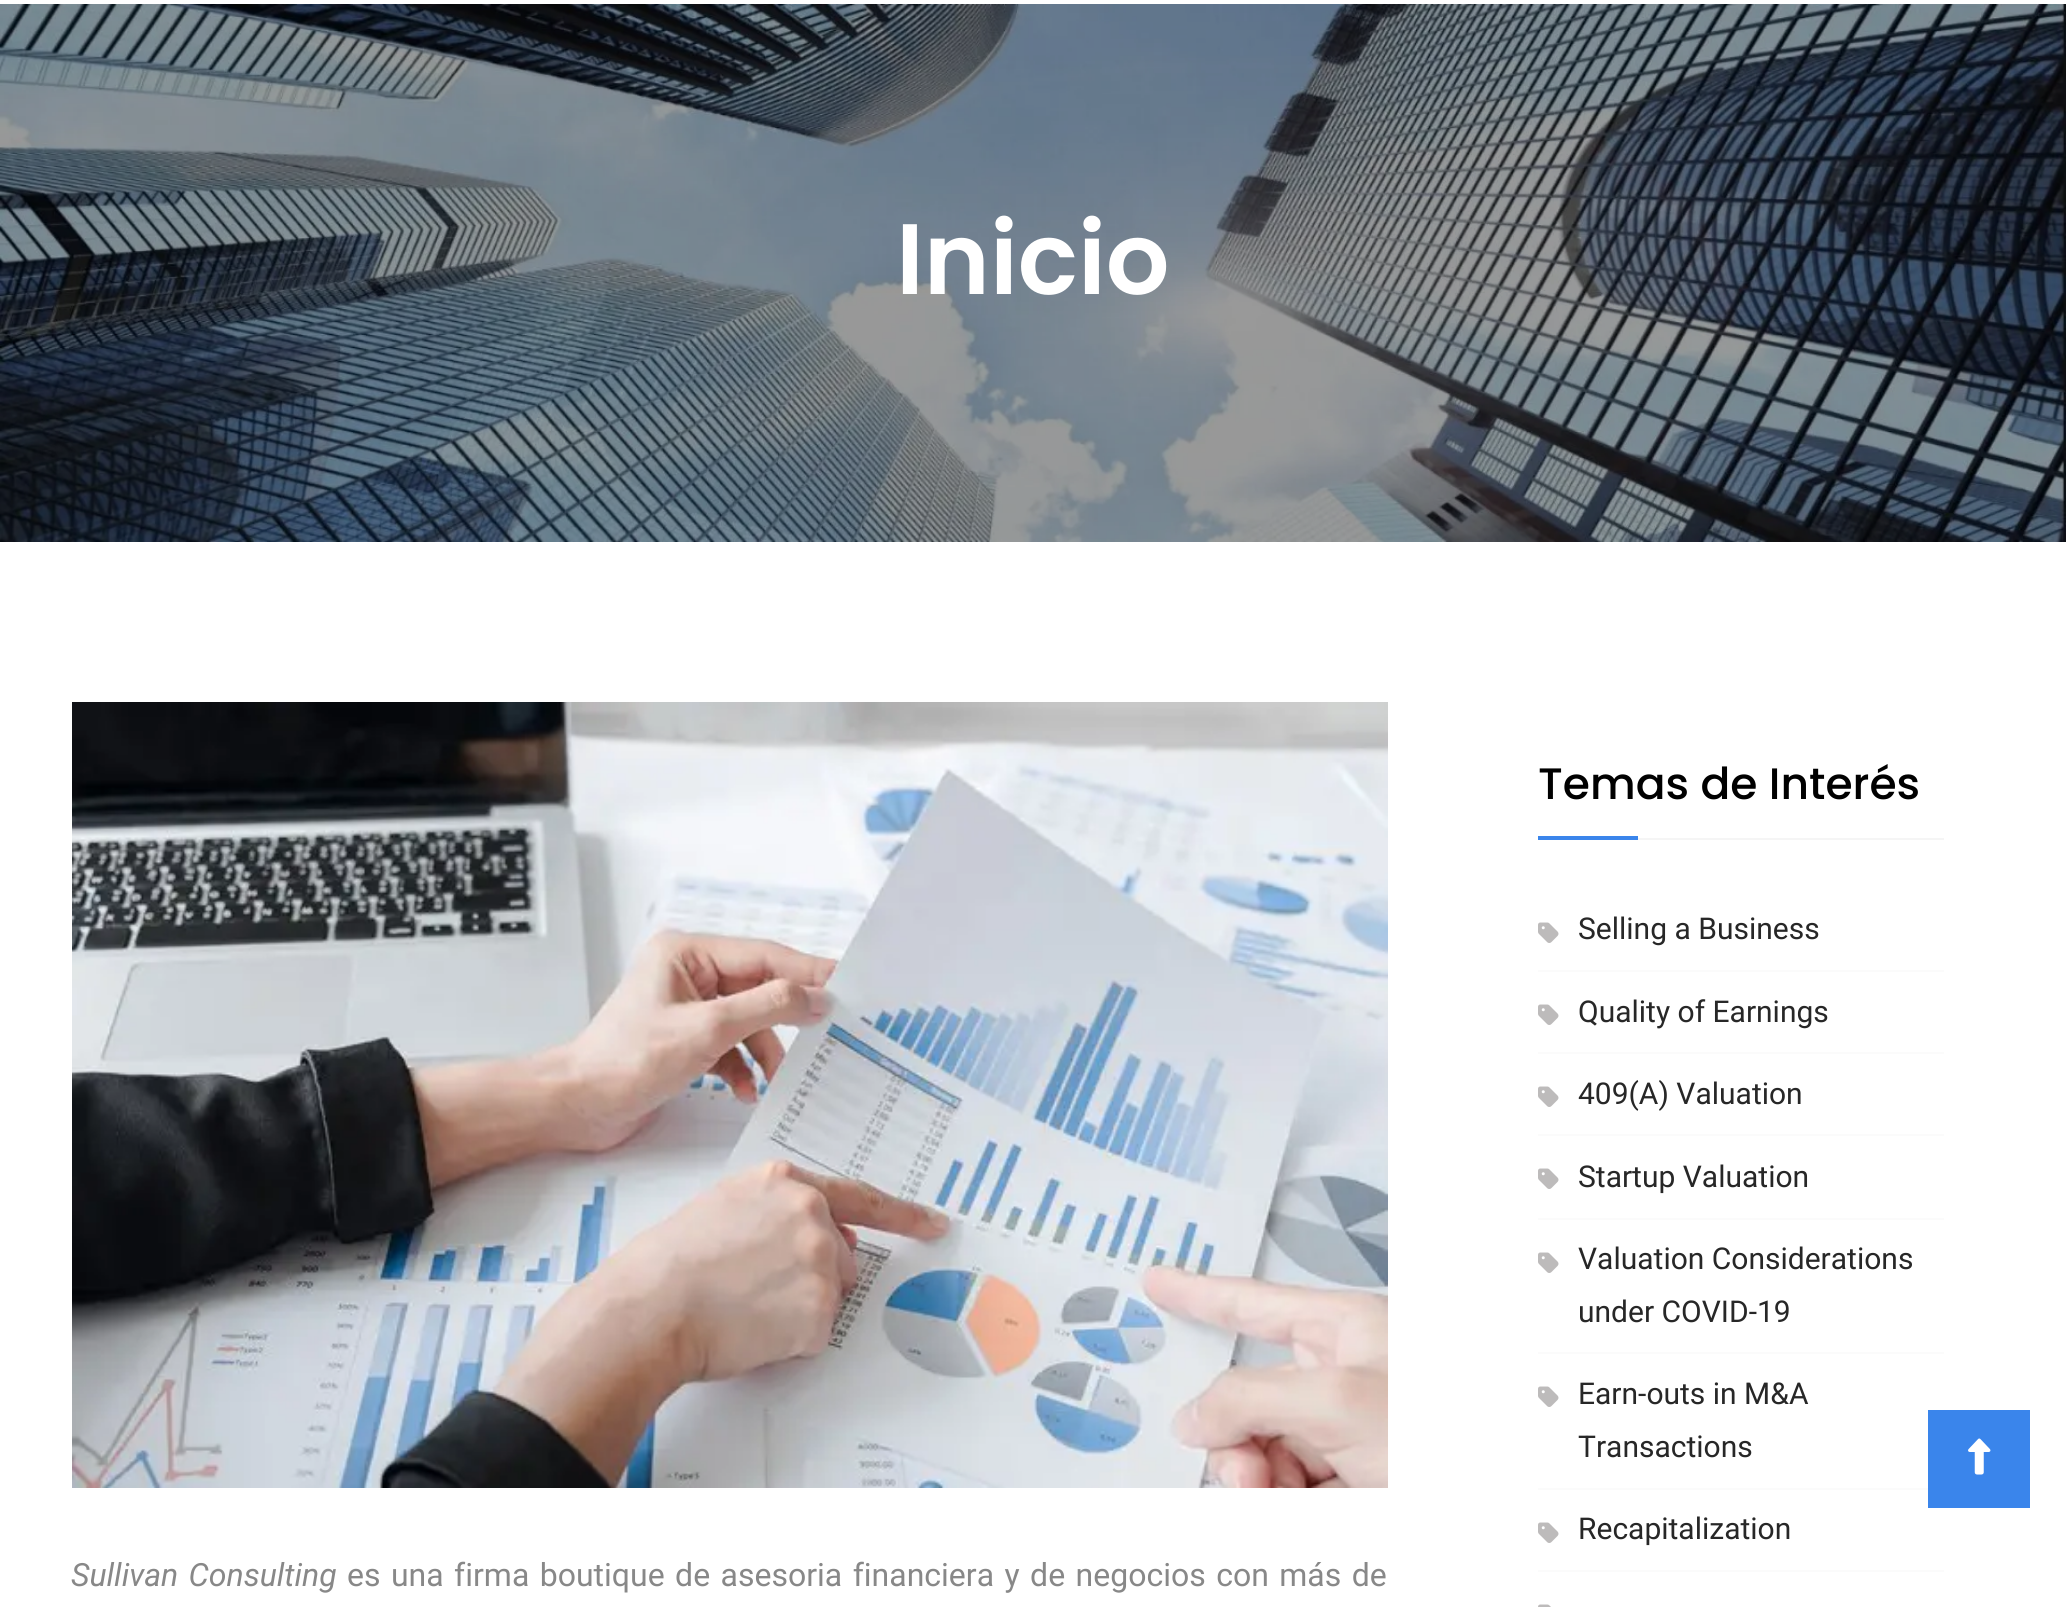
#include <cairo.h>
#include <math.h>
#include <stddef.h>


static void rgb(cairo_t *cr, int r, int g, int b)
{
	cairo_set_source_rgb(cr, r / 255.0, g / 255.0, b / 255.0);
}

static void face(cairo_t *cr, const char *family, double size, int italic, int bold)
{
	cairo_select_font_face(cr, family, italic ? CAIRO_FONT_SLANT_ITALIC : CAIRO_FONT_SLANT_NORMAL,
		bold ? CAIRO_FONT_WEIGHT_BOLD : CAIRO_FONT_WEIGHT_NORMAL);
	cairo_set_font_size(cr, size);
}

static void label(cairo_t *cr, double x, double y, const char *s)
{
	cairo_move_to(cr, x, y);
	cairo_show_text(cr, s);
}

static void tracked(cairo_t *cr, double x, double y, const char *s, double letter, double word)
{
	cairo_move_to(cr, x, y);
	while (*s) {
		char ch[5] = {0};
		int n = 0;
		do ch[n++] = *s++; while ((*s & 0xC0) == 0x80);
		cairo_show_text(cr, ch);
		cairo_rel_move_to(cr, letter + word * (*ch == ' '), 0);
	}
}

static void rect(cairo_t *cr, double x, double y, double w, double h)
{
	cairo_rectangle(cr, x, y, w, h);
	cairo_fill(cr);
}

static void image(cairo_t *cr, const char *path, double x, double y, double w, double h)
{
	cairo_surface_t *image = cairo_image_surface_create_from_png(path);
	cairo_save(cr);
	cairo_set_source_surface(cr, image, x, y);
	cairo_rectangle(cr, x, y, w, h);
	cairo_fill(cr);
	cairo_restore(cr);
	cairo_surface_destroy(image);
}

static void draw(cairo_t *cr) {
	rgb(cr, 255, 255, 255);
	cairo_paint(cr);
	image(cr, "image0.png", 0, 4, 2066, 538);
	face(cr, "Poppins SemiBold", 100, 0, 0);
	rgb(cr, 255, 255, 255);
	label(cr, 896, 294, "Inicio");
	rgb(cr, 245, 245, 245);
	rect(cr, 1638, 838, 306, 2);
	face(cr, "Poppins Medium", 44, 0, 0);
	rgb(cr, 0, 0, 0);
	label(cr, 1538, 799, "Temas de Interés");
	rgb(cr, 58, 133, 235);
	rect(cr, 1538, 836, 100, 4);
	rgb(cr, 251, 251, 251);
	rect(cr, 1538, 970, 406, 2);
	image(cr, "image1.png", 1538, 922, 21, 21);
	face(cr, "Roboto", 30, 0, 0);
	rgb(cr, 39, 39, 39);
	label(cr, 1578, 939, "Selling a Business");
	rgb(cr, 251, 251, 251);
	rect(cr, 1538, 1052, 406, 2);
	image(cr, "image1.png", 1538, 1004, 21, 21);
	rgb(cr, 39, 39, 39);
	label(cr, 1578, 1022, "Quality of Earnings");
	rgb(cr, 251, 251, 251);
	rect(cr, 1538, 1134, 406, 2);
	image(cr, "image1.png", 1538, 1086, 21, 21);
	rgb(cr, 39, 39, 39);
	label(cr, 1578, 1104, "409(A) Valuation");
	rgb(cr, 251, 251, 251);
	rect(cr, 1538, 1218, 406, 2);
	image(cr, "image1.png", 1538, 1168, 21, 21);
	rgb(cr, 39, 39, 39);
	label(cr, 1578, 1187, "Startup Valuation");
	rgb(cr, 251, 251, 251);
	rect(cr, 1538, 1352, 406, 2);
	image(cr, "image1.png", 1538, 1252, 21, 21);
	rgb(cr, 39, 39, 39);
	label(cr, 1578, 1269, "Valuation Considerations");
	label(cr, 1578, 1322, "under COVID-19");
	rgb(cr, 251, 251, 251);
	rect(cr, 1538, 1488, 390, 2);
	image(cr, "image1.png", 1538, 1386, 21, 21);
	rgb(cr, 39, 39, 39);
	label(cr, 1578, 1404, "Earn-outs in M&A");
	label(cr, 1578, 1457, "Transactions");
	rgb(cr, 251, 251, 251);
	rect(cr, 1538, 1570, 406, 2);
	image(cr, "image1.png", 1538, 1522, 21, 21);
	rgb(cr, 39, 39, 39);
	label(cr, 1578, 1539, "Recapitalization");
	image(cr, "image2.png", 1538, 1604, 13, 3);
	image(cr, "image3.png", 72, 702, 1316, 786);
	face(cr, "Roboto", 32, 1, 0);
	rgb(cr, 136, 136, 136);
	tracked(cr, 71, 1586, "Sullivan Consulting", 0, 2.5);
	face(cr, "Roboto", 32, 0, 0);
	tracked(cr, 347, 1586, "es una firma boutique de asesoria financiera y de negocios con más de", 0, 2.5);
	rgb(cr, 58, 133, 235);
	rect(cr, 1928, 1410, 102, 98);
	image(cr, "image4.png", 1968, 1438, 23, 37);
}

int main(void) {
	cairo_surface_t *surface = cairo_image_surface_create(CAIRO_FORMAT_RGB24, 2066, 1607);
	cairo_t *cr = cairo_create(surface);
	cairo_font_options_t *options = cairo_font_options_create();
	cairo_font_options_set_hint_metrics(options, CAIRO_HINT_METRICS_OFF);
	cairo_font_options_set_hint_style(options, CAIRO_HINT_STYLE_NONE);
	cairo_set_font_options(cr, options);
	cairo_set_miter_limit(cr, 4);
	draw(cr);
	cairo_surface_write_to_png(surface, "render.png");
	cairo_font_options_destroy(options);
	cairo_destroy(cr);
	cairo_surface_destroy(surface);
	return 0;
}
